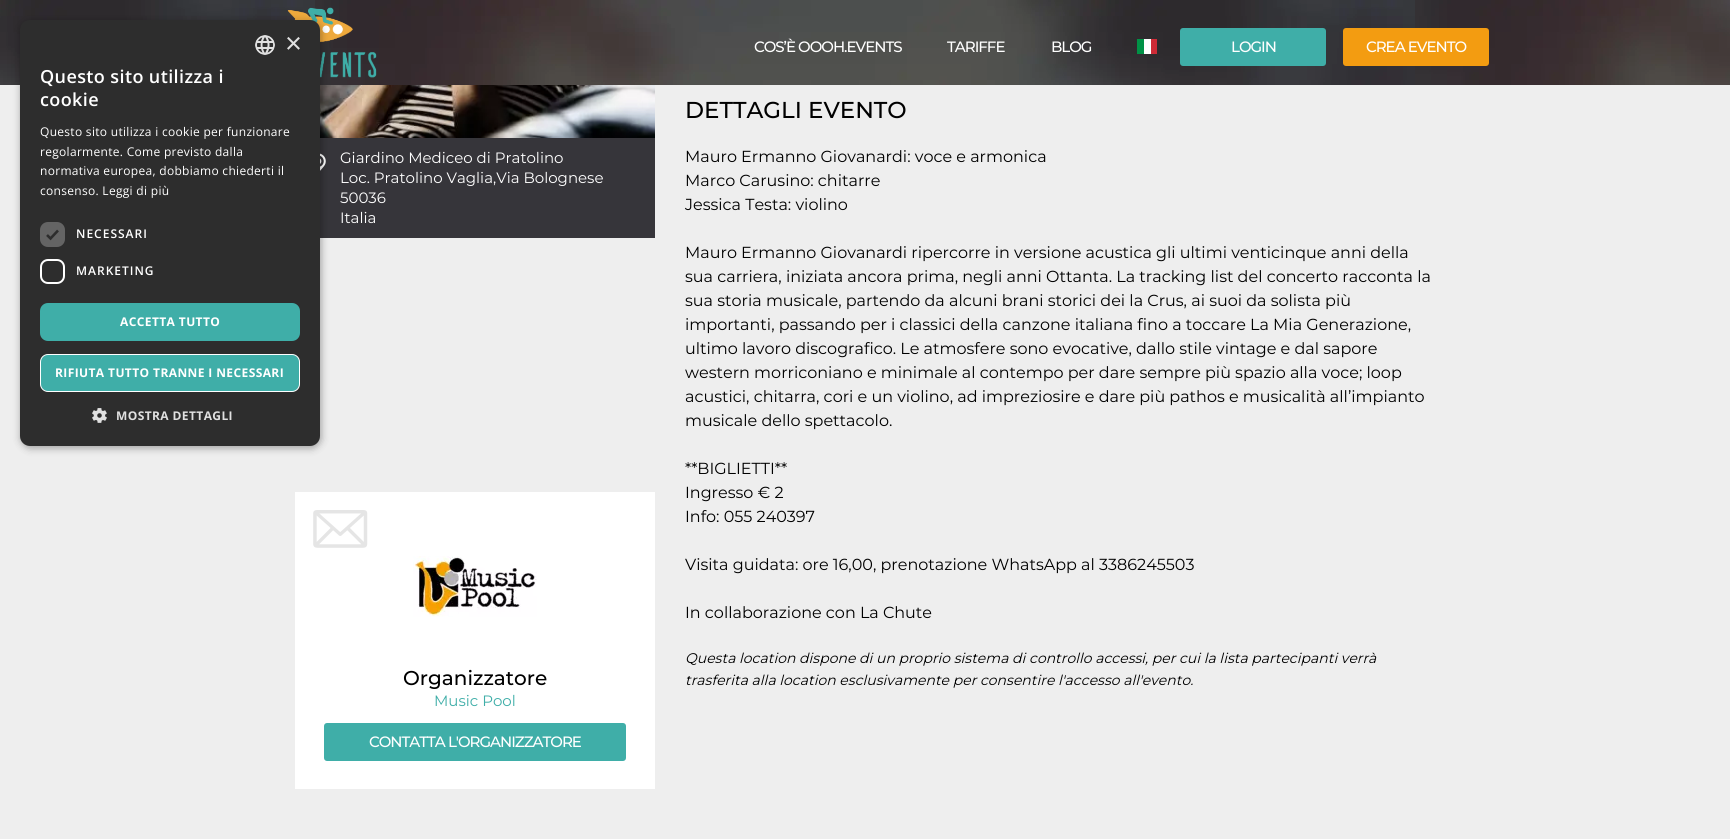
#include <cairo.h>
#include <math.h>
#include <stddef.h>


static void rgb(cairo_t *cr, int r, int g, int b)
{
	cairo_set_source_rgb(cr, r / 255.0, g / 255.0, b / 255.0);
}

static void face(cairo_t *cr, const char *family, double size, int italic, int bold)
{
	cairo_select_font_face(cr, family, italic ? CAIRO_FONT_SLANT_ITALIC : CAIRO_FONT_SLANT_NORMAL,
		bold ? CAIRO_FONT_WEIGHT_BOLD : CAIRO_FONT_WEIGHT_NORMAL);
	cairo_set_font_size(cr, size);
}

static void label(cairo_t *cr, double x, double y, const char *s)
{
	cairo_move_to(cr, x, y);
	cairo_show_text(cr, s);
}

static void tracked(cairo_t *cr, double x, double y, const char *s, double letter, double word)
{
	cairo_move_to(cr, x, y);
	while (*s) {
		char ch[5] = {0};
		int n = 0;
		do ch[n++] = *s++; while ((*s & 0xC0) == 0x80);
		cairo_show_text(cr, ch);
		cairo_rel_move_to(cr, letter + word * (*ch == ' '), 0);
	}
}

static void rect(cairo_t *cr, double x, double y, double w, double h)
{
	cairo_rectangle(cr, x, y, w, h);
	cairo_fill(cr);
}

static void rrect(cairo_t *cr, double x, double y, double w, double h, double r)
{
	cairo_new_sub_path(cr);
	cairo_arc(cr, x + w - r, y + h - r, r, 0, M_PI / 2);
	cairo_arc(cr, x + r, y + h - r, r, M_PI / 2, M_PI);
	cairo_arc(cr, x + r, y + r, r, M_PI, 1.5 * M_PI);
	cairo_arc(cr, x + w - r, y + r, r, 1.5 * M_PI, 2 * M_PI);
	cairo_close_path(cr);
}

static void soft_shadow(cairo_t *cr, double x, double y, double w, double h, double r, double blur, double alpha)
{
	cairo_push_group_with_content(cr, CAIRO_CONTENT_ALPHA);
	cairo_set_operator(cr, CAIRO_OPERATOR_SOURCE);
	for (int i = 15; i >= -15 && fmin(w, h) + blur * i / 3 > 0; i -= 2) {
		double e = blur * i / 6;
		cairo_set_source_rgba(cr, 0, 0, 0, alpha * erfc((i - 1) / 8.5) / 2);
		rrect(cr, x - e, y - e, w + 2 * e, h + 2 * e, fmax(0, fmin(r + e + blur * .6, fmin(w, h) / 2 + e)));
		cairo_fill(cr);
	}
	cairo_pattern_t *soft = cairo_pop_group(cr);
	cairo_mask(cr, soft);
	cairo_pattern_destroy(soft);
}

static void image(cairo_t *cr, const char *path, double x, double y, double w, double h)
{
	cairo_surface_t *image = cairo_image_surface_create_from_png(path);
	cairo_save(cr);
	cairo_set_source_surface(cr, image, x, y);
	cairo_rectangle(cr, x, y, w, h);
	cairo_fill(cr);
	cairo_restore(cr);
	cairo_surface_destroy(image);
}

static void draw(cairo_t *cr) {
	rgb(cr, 238, 238, 238);
	cairo_paint(cr);
	image(cr, "image2.png", 0, 0, 1730, 85);
	image(cr, "image3.png", 287, 7, 90, 71);
	image(cr, "image4.png", 320, 85, 335, 53);
	rgb(cr, 54, 53, 58);
	rect(cr, 320, 138, 335, 100);
	image(cr, "image5.png", 320, 153, 6, 18);
	rgb(cr, 0, 0, 0);
	soft_shadow(cr, 21, 22, 300, 426, 10, 4, 0.35);
	rgb(cr, 45, 45, 45);
	rrect(cr, 20, 20, 300, 426, 10);
	cairo_fill(cr);
	image(cr, "image0.png", 255, 35, 20, 20);
	face(cr, "Liberation Sans", 29, 0, 0);
	rgb(cr, 224, 224, 224);
	label(cr, 285, 53, "×");
	face(cr, "Open Sans SemiBold", 18, 0, 0);
	rgb(cr, 255, 255, 255);
	tracked(cr, 40, 83, "Questo sito utilizza i", 0.4, 0);
	tracked(cr, 40, 106, "cookie", 0.4, 0);
	face(cr, "Open Sans", 12, 0, 0);
	tracked(cr, 40, 136, "Questo sito utilizza i cookie per funzionare", 0.3, 0);
	tracked(cr, 40, 156, "regolarmente. Come previsto dalla", 0.3, 0);
	tracked(cr, 40, 175, "normativa europea, dobbiamo chiederti il", 0.3, 0);
	tracked(cr, 40, 195, "consenso. Leggi di più", 0.3, 0);
	rgb(cr, 100, 100, 100);
	rrect(cr, 40, 222, 25, 25, 8);
	cairo_fill(cr);
	cairo_new_path(cr);
	cairo_move_to(cr, 47, 235);
	cairo_line_to(cr, 50.5, 238.5);
	cairo_line_to(cr, 58, 230.5);
	rgb(cr, 45, 45, 45);
	cairo_set_line_width(cr, 2.6);
	cairo_stroke(cr);
	face(cr, "Open Sans SemiBold", 12, 0, 0);
	rgb(cr, 255, 255, 255);
	tracked(cr, 76, 238, "NECESSARI", 1, 0);
	rrect(cr, 41, 260, 23, 23, 7);
	cairo_set_line_width(cr, 2);
	cairo_stroke(cr);
	tracked(cr, 76, 275, "MARKETING", 1, 0);
	rgb(cr, 63, 174, 168);
	rrect(cr, 40, 303, 260, 38, 8);
	cairo_fill(cr);
	face(cr, "Open Sans", 12, 0, 1);
	rgb(cr, 255, 255, 255);
	tracked(cr, 120, 326, "ACCETTA TUTTO", 0.4, 0);
	rgb(cr, 63, 174, 168);
	rrect(cr, 40.5, 354.5, 259, 37, 7.5);
	cairo_fill_preserve(cr);
	rgb(cr, 255, 255, 255);
	cairo_set_line_width(cr, 1);
	cairo_stroke(cr);
	tracked(cr, 55, 377, "RIFIUTA TUTTO TRANNE I NECESSARI", 0.4, 0);
	image(cr, "image1.png", 92, 408, 15, 15);
	rgb(cr, 224, 224, 224);
	tracked(cr, 116, 420, "MOSTRA DETTAGLI", 0.4, 0);
	face(cr, "Montserrat Medium", 15, 0, 0);
	rgb(cr, 255, 255, 255);
	tracked(cr, 754, 52, "COS’È OOOH.EVENTS", -1, 0);
	tracked(cr, 947, 52, "TARIFFE", -1, 0);
	tracked(cr, 1051, 52, "BLOG", -1, 0);
	rect(cr, 1144, 39, 7, 15);
	rgb(cr, 0, 146, 70);
	rect(cr, 1137, 39, 7, 15);
	rgb(cr, 206, 43, 55);
	rect(cr, 1151, 39, 6, 15);
	rgb(cr, 63, 174, 168);
	rrect(cr, 1180, 28, 146, 38, 3);
	cairo_fill(cr);
	rgb(cr, 255, 255, 255);
	tracked(cr, 1231, 52, "LOGIN", -1, 0);
	rgb(cr, 243, 156, 17);
	rrect(cr, 1343, 28, 146, 38, 3);
	cairo_fill(cr);
	rgb(cr, 255, 255, 255);
	tracked(cr, 1366, 52, "CREA EVENTO", -1, 0);
	face(cr, "Montserrat", 15, 0, 0);
	label(cr, 340, 163, "Giardino Mediceo di Pratolino");
	label(cr, 340, 183, "Loc. Pratolino Vaglia,Via Bolognese");
	label(cr, 340, 203, "50036");
	label(cr, 340, 223, "Italia");
	rect(cr, 295, 492, 360, 297);
	image(cr, "image6.png", 313, 510, 55, 38);
	image(cr, "image7.png", 413, 556, 124, 61);
	face(cr, "Montserrat Medium", 20, 0, 0);
	rgb(cr, 0, 0, 0);
	label(cr, 403, 685, "Organizzatore");
	face(cr, "Montserrat", 15, 0, 0);
	rgb(cr, 63, 174, 168);
	label(cr, 434, 706, "Music Pool");
	rrect(cr, 324, 723, 302, 38, 3);
	cairo_fill(cr);
	face(cr, "Montserrat Medium", 15, 0, 0);
	rgb(cr, 255, 255, 255);
	tracked(cr, 369, 747, "CONTATTA L'ORGANIZZATORE", -1, 0);
	face(cr, "Montserrat Medium", 23, 0, 0);
	rgb(cr, 0, 0, 0);
	label(cr, 685, 118, "DETTAGLI EVENTO");
	face(cr, "Montserrat", 16, 0, 0);
	label(cr, 685, 162, "Mauro Ermanno Giovanardi: voce e armonica");
	label(cr, 685, 186, "Marco Carusino: chitarre");
	label(cr, 685, 210, "Jessica Testa: violino");
	label(cr, 685, 258, "Mauro Ermanno Giovanardi ripercorre in versione acustica gli ultimi venticinque anni della");
	label(cr, 685, 282, "sua carriera, iniziata ancora prima, negli anni Ottanta. La tracking list del concerto racconta la");
	label(cr, 685, 306, "sua storia musicale, partendo da alcuni brani storici dei la Crus, ai suoi da solista più");
	label(cr, 685, 330, "importanti, passando per i classici della canzone italiana fino a toccare La Mia Generazione,");
	label(cr, 685, 354, "ultimo lavoro discografico. Le atmosfere sono evocative, dallo stile vintage e dal sapore");
	label(cr, 685, 378, "western morriconiano e minimale al contempo per dare sempre più spazio alla voce; loop");
	label(cr, 685, 402, "acustici, chitarra, cori e un violino, ad impreziosire e dare più pathos e musicalità all’impianto");
	label(cr, 685, 426, "musicale dello spettacolo.");
	label(cr, 685, 474, "**BIGLIETTI**");
	label(cr, 685, 498, "Ingresso € 2");
	label(cr, 685, 522, "Info: 055 240397");
	label(cr, 685, 570, "Visita guidata: ore 16,00, prenotazione WhatsApp al 3386245503");
	label(cr, 685, 618, "In collaborazione con La Chute");
	face(cr, "Montserrat", 14, 1, 0);
	label(cr, 685, 663, "Questa location dispone di un proprio sistema di controllo accessi, per cui la lista partecipanti verrà");
	label(cr, 685, 685, "trasferita alla location esclusivamente per consentire l'accesso all'evento.");
}

int main(void) {
	cairo_surface_t *surface = cairo_image_surface_create(CAIRO_FORMAT_RGB24, 1730, 839);
	cairo_t *cr = cairo_create(surface);
	cairo_font_options_t *options = cairo_font_options_create();
	cairo_font_options_set_hint_metrics(options, CAIRO_HINT_METRICS_OFF);
	cairo_font_options_set_hint_style(options, CAIRO_HINT_STYLE_NONE);
	cairo_set_font_options(cr, options);
	cairo_set_miter_limit(cr, 4);
	draw(cr);
	cairo_surface_write_to_png(surface, "render.png");
	cairo_font_options_destroy(options);
	cairo_destroy(cr);
	cairo_surface_destroy(surface);
	return 0;
}
